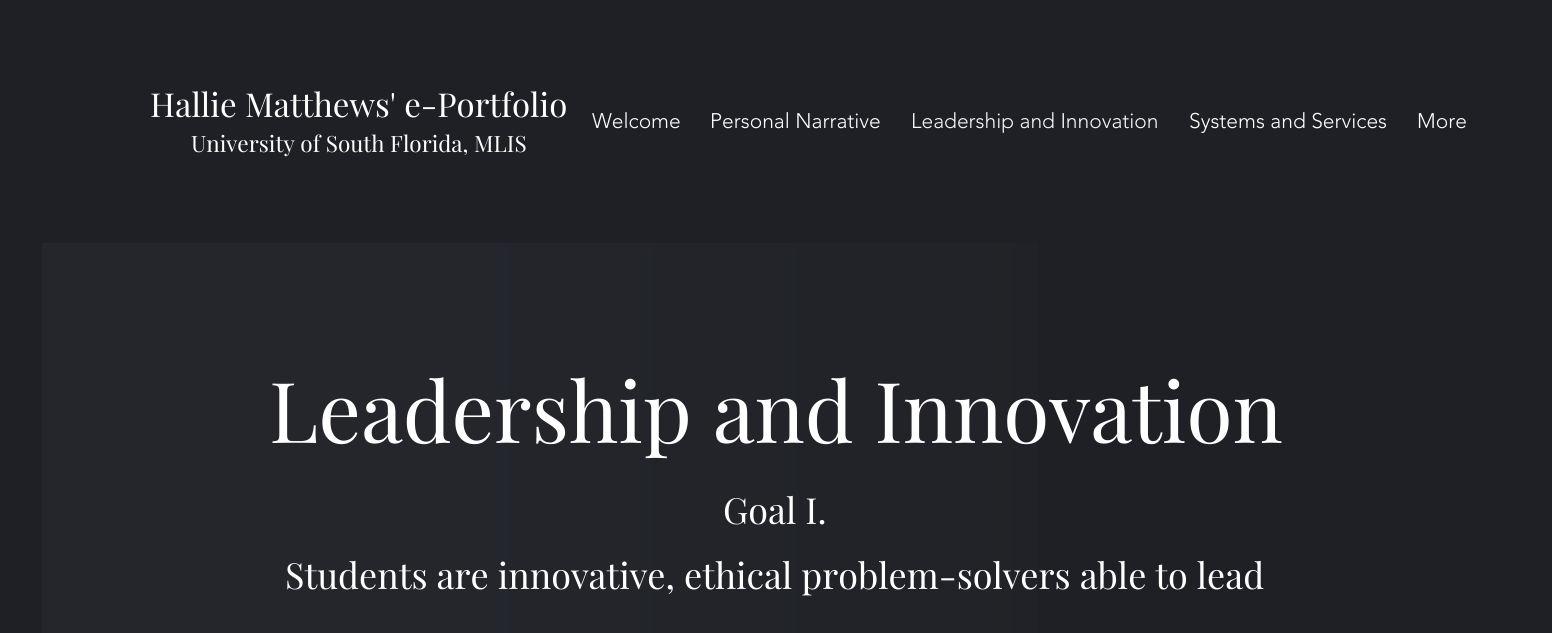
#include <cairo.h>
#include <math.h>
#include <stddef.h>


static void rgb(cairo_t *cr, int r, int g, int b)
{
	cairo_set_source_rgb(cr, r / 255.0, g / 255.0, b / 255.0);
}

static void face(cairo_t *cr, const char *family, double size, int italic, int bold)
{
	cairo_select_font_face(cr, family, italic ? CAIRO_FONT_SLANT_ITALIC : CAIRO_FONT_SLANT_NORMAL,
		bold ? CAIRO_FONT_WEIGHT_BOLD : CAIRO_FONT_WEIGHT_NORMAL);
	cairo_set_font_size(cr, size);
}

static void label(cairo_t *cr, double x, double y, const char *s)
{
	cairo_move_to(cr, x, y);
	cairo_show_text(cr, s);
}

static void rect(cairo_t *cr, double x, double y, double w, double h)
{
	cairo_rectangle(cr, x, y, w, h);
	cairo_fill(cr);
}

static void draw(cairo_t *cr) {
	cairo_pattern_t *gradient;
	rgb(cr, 30, 32, 37);
	cairo_paint(cr);
	face(cr, "Playfair Display", 33, 0, 0);
	rgb(cr, 255, 255, 255);
	label(cr, 150, 117, "Hallie Matthews' e-Portfolio");
	face(cr, "Playfair Display", 22.5, 0, 0);
	label(cr, 191, 152, "University of South Florida, MLIS");
	face(cr, "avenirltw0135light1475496 Light", 21, 0, 0);
	label(cr, 592, 128, "Welcome");
	label(cr, 710, 128, "Personal Narrative");
	rgb(cr, 247, 247, 247);
	label(cr, 911, 128, "Leadership and Innovation");
	rgb(cr, 255, 255, 255);
	label(cr, 1189, 128, "Systems and Services");
	label(cr, 1417, 128, "More");
	gradient = cairo_pattern_create_linear(42, 545, 1512, 545);
	cairo_pattern_add_color_stop_rgba(gradient, 0.27, 0.141, 0.149, 0.173, 1);
	cairo_pattern_add_color_stop_rgba(gradient, 0.57, 0.129, 0.137, 0.157, 1);
	cairo_pattern_add_color_stop_rgba(gradient, 1, 0.122, 0.129, 0.145, 1);
	cairo_set_source(cr, gradient);
	cairo_pattern_destroy(gradient);
	rect(cr, 42, 243, 996, 390);
	face(cr, "Playfair Display", 84, 0, 0);
	rgb(cr, 255, 255, 255);
	label(cr, 269, 443, "Leadership and Innovation");
	face(cr, "Playfair Display", 36, 0, 0);
	label(cr, 723, 524, "Goal I.");
	label(cr, 285, 589, "Students are innovative, ethical problem-solvers able to lead");
}

int main(void) {
	cairo_surface_t *surface = cairo_image_surface_create(CAIRO_FORMAT_RGB24, 1552, 633);
	cairo_t *cr = cairo_create(surface);
	cairo_font_options_t *options = cairo_font_options_create();
	cairo_font_options_set_hint_metrics(options, CAIRO_HINT_METRICS_OFF);
	cairo_font_options_set_hint_style(options, CAIRO_HINT_STYLE_NONE);
	cairo_set_font_options(cr, options);
	cairo_set_miter_limit(cr, 4);
	draw(cr);
	cairo_surface_write_to_png(surface, "render.png");
	cairo_font_options_destroy(options);
	cairo_destroy(cr);
	cairo_surface_destroy(surface);
	return 0;
}
